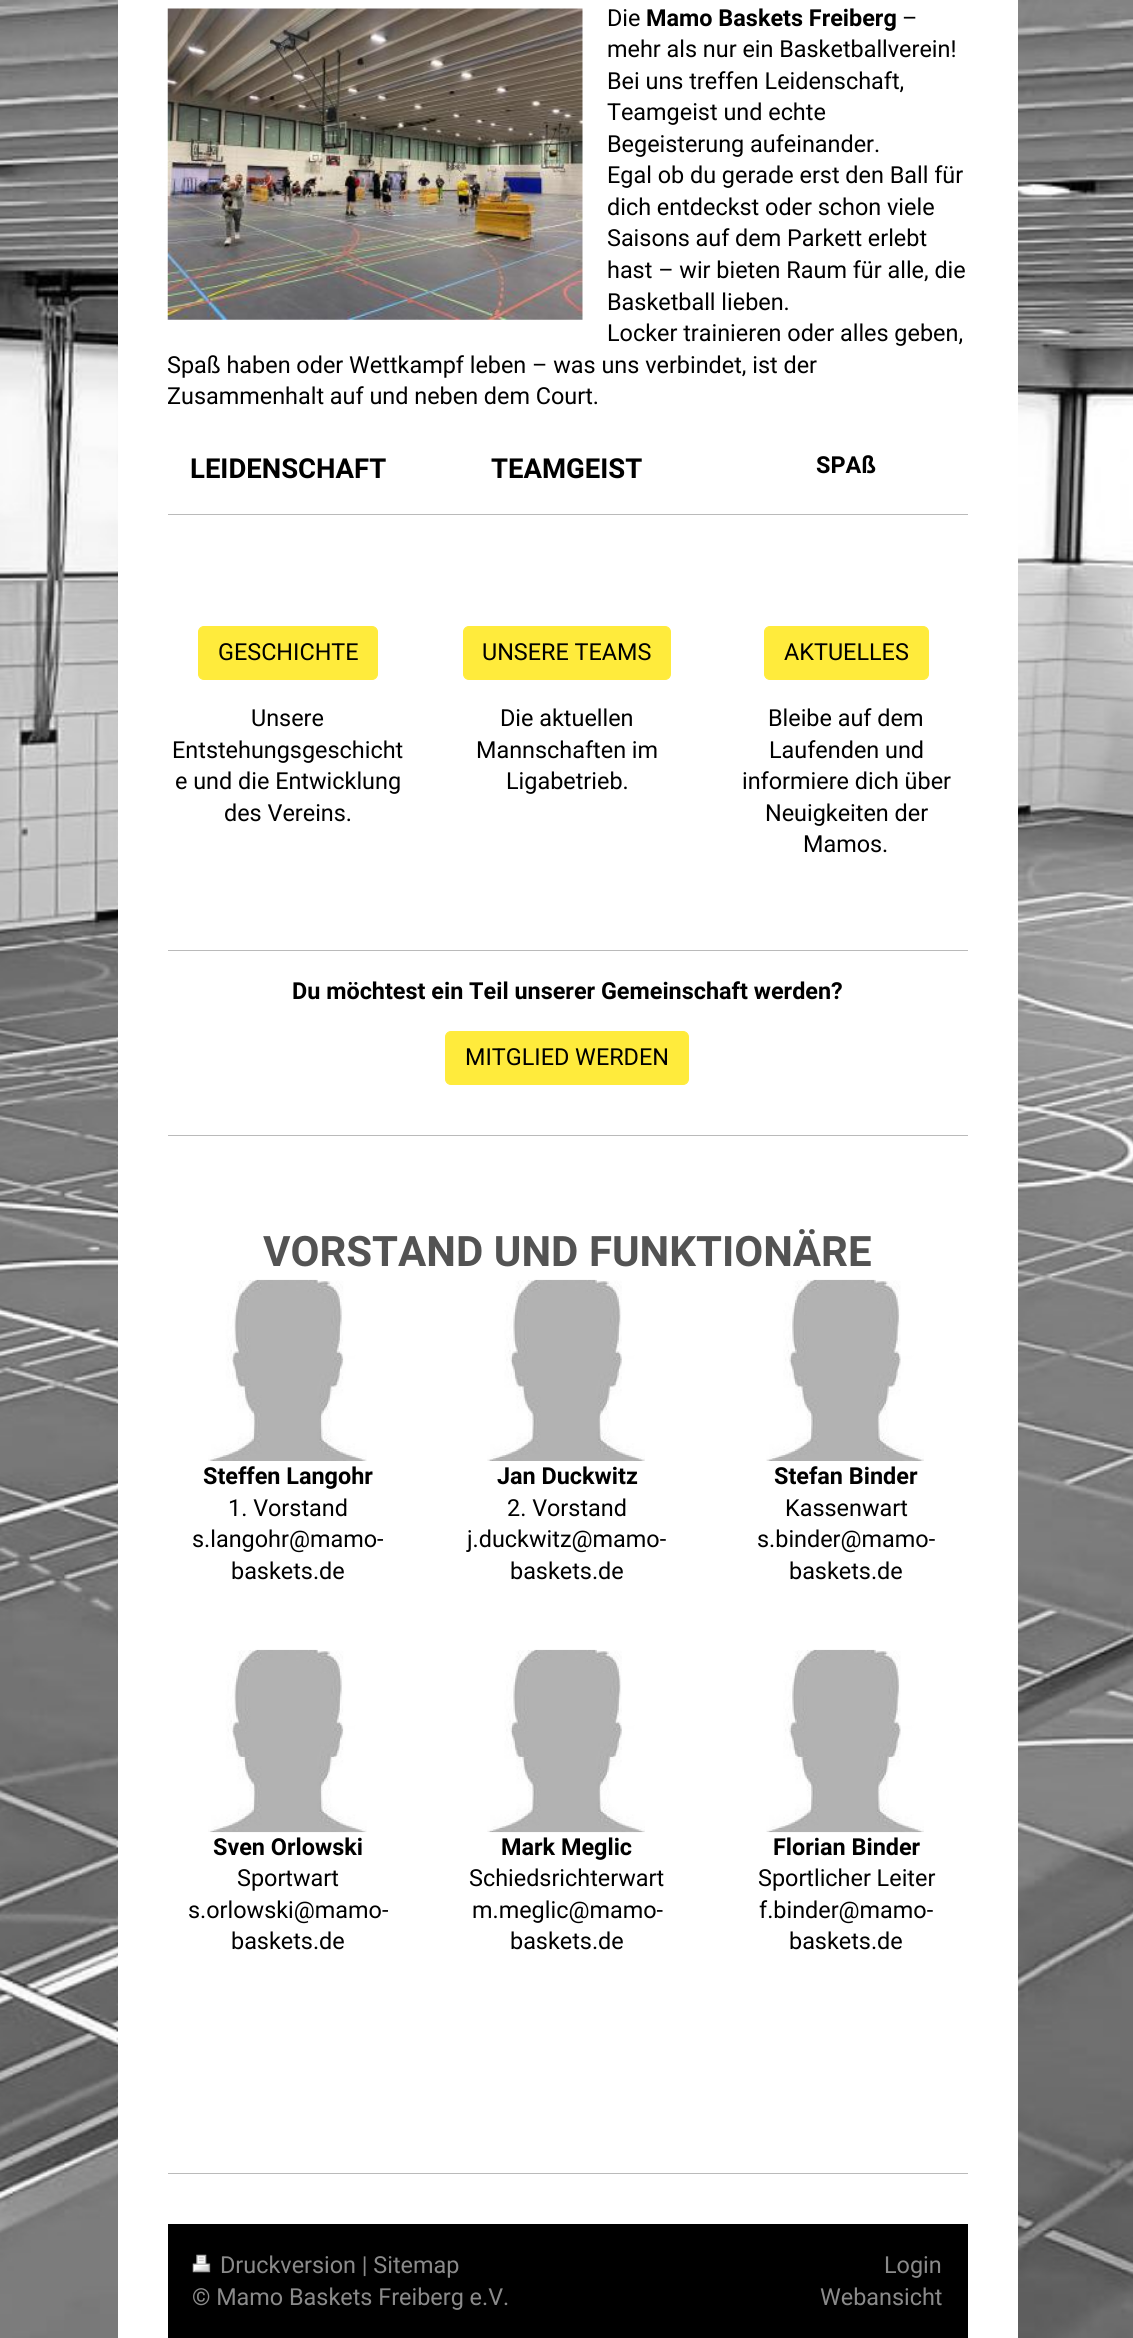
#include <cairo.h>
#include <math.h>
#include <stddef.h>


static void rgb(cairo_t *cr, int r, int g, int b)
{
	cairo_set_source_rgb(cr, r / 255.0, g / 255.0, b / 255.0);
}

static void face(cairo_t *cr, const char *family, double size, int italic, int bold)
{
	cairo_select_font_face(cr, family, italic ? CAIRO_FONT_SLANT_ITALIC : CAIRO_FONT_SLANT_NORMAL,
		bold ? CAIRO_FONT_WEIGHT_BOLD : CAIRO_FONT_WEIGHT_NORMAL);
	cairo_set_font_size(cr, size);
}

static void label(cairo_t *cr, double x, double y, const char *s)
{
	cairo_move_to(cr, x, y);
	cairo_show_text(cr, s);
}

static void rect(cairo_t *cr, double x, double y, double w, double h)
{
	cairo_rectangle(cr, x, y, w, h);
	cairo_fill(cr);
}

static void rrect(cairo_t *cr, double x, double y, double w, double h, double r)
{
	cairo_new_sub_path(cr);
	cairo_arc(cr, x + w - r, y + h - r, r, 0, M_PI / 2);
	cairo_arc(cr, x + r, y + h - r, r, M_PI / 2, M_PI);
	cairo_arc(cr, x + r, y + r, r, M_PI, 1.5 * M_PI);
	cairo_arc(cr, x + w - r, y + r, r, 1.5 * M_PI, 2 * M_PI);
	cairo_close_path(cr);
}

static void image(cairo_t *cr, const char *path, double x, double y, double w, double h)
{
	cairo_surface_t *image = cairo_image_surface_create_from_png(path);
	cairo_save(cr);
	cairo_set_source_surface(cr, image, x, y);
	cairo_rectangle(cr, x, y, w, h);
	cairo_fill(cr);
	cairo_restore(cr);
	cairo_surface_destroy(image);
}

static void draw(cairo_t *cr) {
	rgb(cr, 255, 255, 255);
	cairo_paint(cr);
	image(cr, "image0.png", 0, 0, 1133, 2338);
	rgb(cr, 255, 255, 255);
	rect(cr, 118, 0, 900, 2338);
	image(cr, "image1.png", 167, 8, 416, 312);
	face(cr, "Roboto", 23.4, 0, 0);
	rgb(cr, 0, 0, 0);
	label(cr, 607, 26, "Die");
	face(cr, "Roboto", 23.4, 0, 1);
	label(cr, 646, 26, "Mamo Baskets Freiberg");
	face(cr, "Roboto", 23.4, 0, 0);
	label(cr, 902, 26, "–");
	label(cr, 607, 57, "mehr als nur ein Basketballverein!");
	label(cr, 607, 89, "Bei uns treffen Leidenschaft,");
	label(cr, 607, 120, "Teamgeist und echte");
	label(cr, 607, 152, "Begeisterung aufeinander.");
	label(cr, 607, 183, "Egal ob du gerade erst den Ball für");
	label(cr, 607, 215, "dich entdeckst oder schon viele");
	label(cr, 607, 246, "Saisons auf dem Parkett erlebt");
	label(cr, 607, 278, "hast – wir bieten Raum für alle, die");
	label(cr, 607, 310, "Basketball lieben.");
	label(cr, 607, 341, "Locker trainieren oder alles geben,");
	label(cr, 167, 373, "Spaß haben oder Wettkampf leben – was uns verbindet, ist der");
	label(cr, 167, 404, "Zusammenhalt auf und neben dem Court.");
	face(cr, "Roboto", 27.5, 0, 1);
	label(cr, 190, 478, "LEIDENSCHAFT");
	label(cr, 491, 478, "TEAMGEIST");
	face(cr, "Roboto", 23.4, 0, 1);
	label(cr, 816, 473, "SPAß");
	rgb(cr, 186, 186, 186);
	rect(cr, 168, 514, 800, 1);
	rgb(cr, 255, 235, 60);
	rrect(cr, 198.5, 626.5, 179, 53, 5.5);
	cairo_fill_preserve(cr);
	cairo_set_line_width(cr, 1);
	cairo_stroke(cr);
	face(cr, "Roboto", 23.4, 0, 0);
	rgb(cr, 0, 0, 0);
	label(cr, 218, 660, "GESCHICHTE");
	label(cr, 251, 726, "Unsere");
	label(cr, 172, 758, "Entstehungsgeschicht");
	label(cr, 175, 789, "e und die Entwicklung");
	label(cr, 224, 821, "des Vereins.");
	rgb(cr, 255, 235, 60);
	rrect(cr, 463.5, 626.5, 207, 53, 5.5);
	cairo_fill_preserve(cr);
	cairo_stroke(cr);
	rgb(cr, 0, 0, 0);
	label(cr, 482, 660, "UNSERE TEAMS");
	label(cr, 500, 726, "Die aktuellen");
	label(cr, 476, 758, "Mannschaften im");
	label(cr, 506, 789, "Ligabetrieb.");
	rgb(cr, 255, 235, 60);
	rrect(cr, 764.5, 626.5, 164, 53, 5.5);
	cairo_fill_preserve(cr);
	cairo_stroke(cr);
	rgb(cr, 0, 0, 0);
	label(cr, 784, 660, "AKTUELLES");
	label(cr, 768, 726, "Bleibe auf dem");
	label(cr, 769, 758, "Laufenden und");
	label(cr, 742, 789, "informiere dich über");
	label(cr, 765, 821, "Neuigkeiten der");
	label(cr, 803, 852, "Mamos.");
	rgb(cr, 186, 186, 186);
	rect(cr, 168, 950, 800, 1);
	face(cr, "Roboto", 23.4, 0, 1);
	rgb(cr, 0, 0, 0);
	label(cr, 292, 999, "Du möchtest ein Teil unserer Gemeinschaft werden?");
	rgb(cr, 255, 235, 60);
	rrect(cr, 445.5, 1031.5, 243, 53, 5.5);
	cairo_fill_preserve(cr);
	cairo_stroke(cr);
	face(cr, "Roboto", 23.4, 0, 0);
	rgb(cr, 0, 0, 0);
	label(cr, 465, 1065, "MITGLIED WERDEN");
	rgb(cr, 186, 186, 186);
	rect(cr, 168, 1135, 800, 1);
	face(cr, "Roboto", 42, 0, 1);
	rgb(cr, 83, 83, 83);
	label(cr, 263, 1266, "VORSTAND UND FUNKTIONÄRE");
	image(cr, "image2.png", 208, 1279, 159, 182);
	face(cr, "Roboto", 23.4, 0, 1);
	rgb(cr, 0, 0, 0);
	label(cr, 203, 1484, "Steffen Langohr");
	face(cr, "Roboto", 23.4, 0, 0);
	label(cr, 228, 1516, "1. Vorstand");
	label(cr, 192, 1547, "s.langohr@mamo-");
	label(cr, 231, 1579, "baskets.de");
	image(cr, "image3.png", 487, 1279, 158, 182);
	face(cr, "Roboto", 23.4, 0, 1);
	label(cr, 497, 1484, "Jan Duckwitz");
	face(cr, "Roboto", 23.4, 0, 0);
	label(cr, 507, 1516, "2. Vorstand");
	label(cr, 467, 1547, "j.duckwitz@mamo-");
	label(cr, 510, 1579, "baskets.de");
	image(cr, "image4.png", 766, 1279, 158, 182);
	face(cr, "Roboto", 23.4, 0, 1);
	label(cr, 774, 1484, "Stefan Binder");
	face(cr, "Roboto", 23.4, 0, 0);
	label(cr, 785, 1516, "Kassenwart");
	label(cr, 757, 1547, "s.binder@mamo-");
	label(cr, 789, 1579, "baskets.de");
	image(cr, "image5.png", 208, 1649, 159, 184);
	face(cr, "Roboto", 23.4, 0, 1);
	label(cr, 213, 1855, "Sven Orlowski");
	face(cr, "Roboto", 23.4, 0, 0);
	label(cr, 237, 1886, "Sportwart");
	label(cr, 188, 1918, "s.orlowski@mamo-");
	label(cr, 231, 1949, "baskets.de");
	image(cr, "image6.png", 487, 1649, 158, 184);
	face(cr, "Roboto", 23.4, 0, 1);
	label(cr, 501, 1855, "Mark Meglic");
	face(cr, "Roboto", 23.4, 0, 0);
	label(cr, 469, 1886, "Schiedsrichterwart");
	label(cr, 472, 1918, "m.meglic@mamo-");
	label(cr, 510, 1949, "baskets.de");
	image(cr, "image7.png", 766, 1649, 158, 184);
	face(cr, "Roboto", 23.4, 0, 1);
	label(cr, 773, 1855, "Florian Binder");
	face(cr, "Roboto", 23.4, 0, 0);
	label(cr, 758, 1886, "Sportlicher Leiter");
	label(cr, 759, 1918, "f.binder@mamo-");
	label(cr, 789, 1949, "baskets.de");
	rgb(cr, 186, 186, 186);
	rect(cr, 168, 2173, 800, 1);
	rgb(cr, 0, 0, 0);
	rect(cr, 168, 2224, 800, 114);
	image(cr, "image8.png", 192, 2254, 19, 19);
	rgb(cr, 138, 138, 138);
	label(cr, 220, 2273, "Druckversion | Sitemap");
	label(cr, 192, 2305, "© Mamo Baskets Freiberg e.V.");
	label(cr, 884, 2273, "Login");
	label(cr, 820, 2305, "Webansicht");
}

int main(void) {
	cairo_surface_t *surface = cairo_image_surface_create(CAIRO_FORMAT_RGB24, 1133, 2338);
	cairo_t *cr = cairo_create(surface);
	cairo_font_options_t *options = cairo_font_options_create();
	cairo_font_options_set_hint_metrics(options, CAIRO_HINT_METRICS_OFF);
	cairo_font_options_set_hint_style(options, CAIRO_HINT_STYLE_NONE);
	cairo_set_font_options(cr, options);
	cairo_set_miter_limit(cr, 4);
	draw(cr);
	cairo_surface_write_to_png(surface, "render.png");
	cairo_font_options_destroy(options);
	cairo_destroy(cr);
	cairo_surface_destroy(surface);
	return 0;
}
